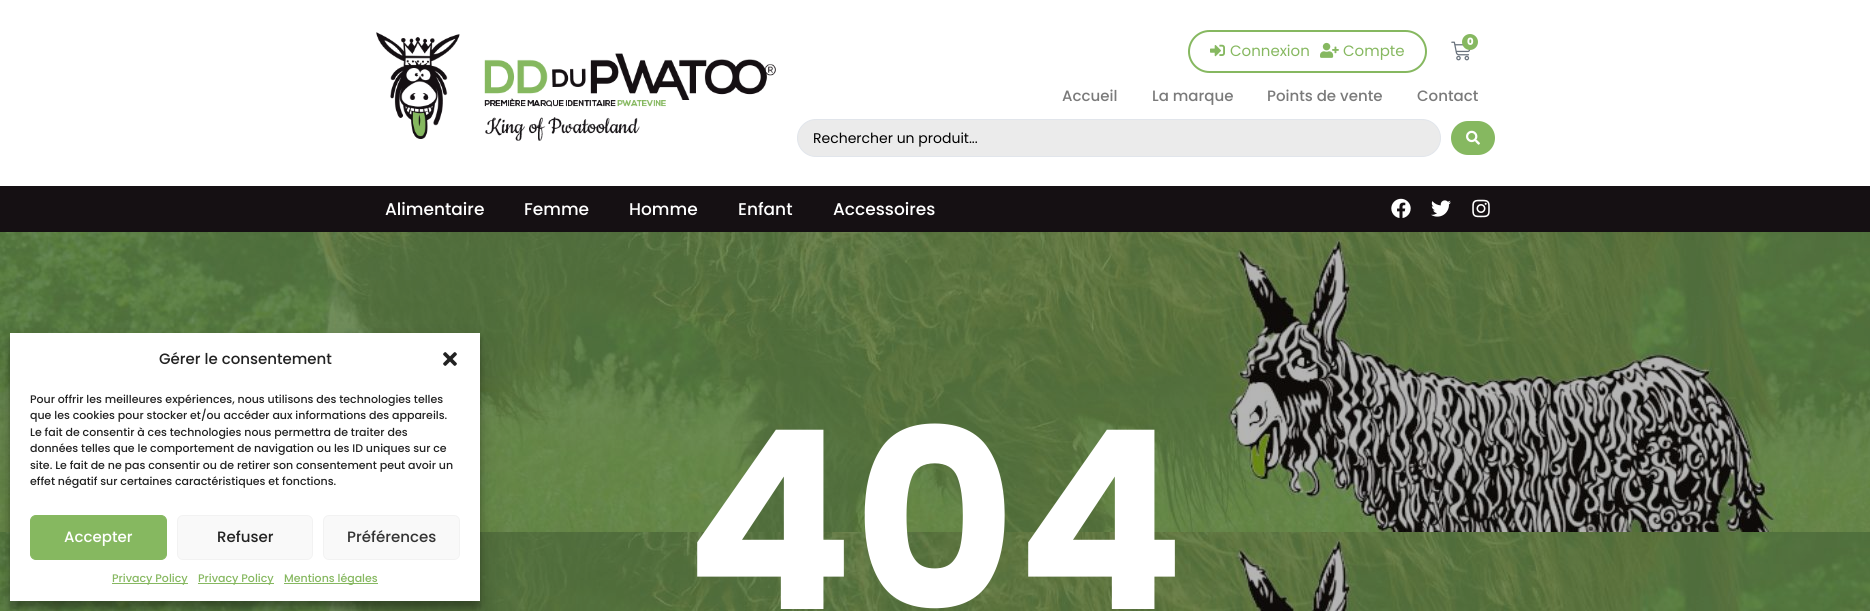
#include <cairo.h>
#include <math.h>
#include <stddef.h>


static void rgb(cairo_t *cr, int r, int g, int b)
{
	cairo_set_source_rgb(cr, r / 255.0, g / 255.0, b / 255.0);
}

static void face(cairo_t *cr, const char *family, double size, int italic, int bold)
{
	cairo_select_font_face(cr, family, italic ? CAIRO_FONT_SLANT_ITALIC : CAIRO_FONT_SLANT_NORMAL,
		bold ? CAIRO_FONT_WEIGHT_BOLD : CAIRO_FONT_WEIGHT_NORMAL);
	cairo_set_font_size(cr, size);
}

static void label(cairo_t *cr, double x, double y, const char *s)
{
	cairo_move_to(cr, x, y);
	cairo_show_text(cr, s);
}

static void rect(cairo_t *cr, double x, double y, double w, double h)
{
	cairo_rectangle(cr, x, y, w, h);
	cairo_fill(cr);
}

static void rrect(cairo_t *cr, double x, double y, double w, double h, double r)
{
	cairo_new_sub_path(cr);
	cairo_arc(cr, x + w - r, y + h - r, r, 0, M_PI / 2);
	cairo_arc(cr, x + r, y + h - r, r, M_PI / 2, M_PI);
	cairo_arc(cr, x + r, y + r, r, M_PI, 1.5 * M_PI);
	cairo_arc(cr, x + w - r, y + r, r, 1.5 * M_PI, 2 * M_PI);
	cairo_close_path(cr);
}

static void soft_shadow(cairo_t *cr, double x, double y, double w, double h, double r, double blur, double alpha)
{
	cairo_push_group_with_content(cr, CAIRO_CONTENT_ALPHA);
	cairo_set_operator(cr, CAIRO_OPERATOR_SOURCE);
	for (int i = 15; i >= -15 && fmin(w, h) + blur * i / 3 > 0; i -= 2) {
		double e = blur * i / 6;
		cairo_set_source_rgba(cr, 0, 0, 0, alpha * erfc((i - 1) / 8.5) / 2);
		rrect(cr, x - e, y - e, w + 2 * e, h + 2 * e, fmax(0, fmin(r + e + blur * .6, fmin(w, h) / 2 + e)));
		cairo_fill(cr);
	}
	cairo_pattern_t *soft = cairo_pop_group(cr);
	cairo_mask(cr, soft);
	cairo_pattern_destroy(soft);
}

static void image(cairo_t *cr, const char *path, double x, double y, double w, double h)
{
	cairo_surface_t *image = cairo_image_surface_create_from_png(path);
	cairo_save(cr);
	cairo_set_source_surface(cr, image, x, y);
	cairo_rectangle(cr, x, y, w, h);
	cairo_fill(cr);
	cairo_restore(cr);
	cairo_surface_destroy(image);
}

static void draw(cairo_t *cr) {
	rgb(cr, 255, 255, 255);
	cairo_paint(cr);
	image(cr, "image0.png", 376, 32, 400, 109);
	image(cr, "image1.png", 1451, 41, 20, 20);
	rgb(cr, 134, 184, 96);
	cairo_arc(cr, 1470, 42, 8, 0, 2 * M_PI);
	cairo_fill(cr);
	face(cr, "Poppins ExtraBold", 10, 0, 0);
	rgb(cr, 255, 255, 255);
	label(cr, 1467, 45, "0");
	rrect(cr, 1189, 31, 237, 41, 20.5);
	rgb(cr, 134, 184, 96);
	cairo_stroke(cr);
	image(cr, "image2.png", 1210, 44, 15, 13);
	face(cr, "Poppins", 15, 0, 0);
	label(cr, 1230, 56, "Connexion");
	image(cr, "image3.png", 1320, 42, 19, 16);
	label(cr, 1343, 56, "Compte");
	face(cr, "Poppins Medium", 15, 0, 0);
	rgb(cr, 122, 122, 122);
	label(cr, 1062, 101, "Accueil");
	label(cr, 1152, 101, "La marque");
	label(cr, 1267, 101, "Points de vente");
	label(cr, 1417, 101, "Contact");
	rgb(cr, 235, 235, 235);
	rrect(cr, 797.5, 119.5, 643, 37, 18.5);
	cairo_fill_preserve(cr);
	rgb(cr, 225, 229, 235);
	cairo_set_line_width(cr, 1);
	cairo_stroke(cr);
	face(cr, "Poppins", 14, 0, 0);
	rgb(cr, 0, 0, 0);
	label(cr, 813, 143, "Rechercher un produit...");
	rgb(cr, 134, 184, 96);
	rrect(cr, 1451, 121, 44, 34, 17);
	cairo_fill(cr);
	image(cr, "image4.png", 1466, 130, 14, 15);
	rgb(cr, 21, 16, 19);
	rect(cr, 0, 186, 1870, 46);
	face(cr, "Poppins Medium", 17, 0, 0);
	rgb(cr, 255, 255, 255);
	label(cr, 385, 215, "Alimentaire");
	label(cr, 524, 215, "Femme");
	label(cr, 629, 215, "Homme");
	label(cr, 738, 215, "Enfant");
	label(cr, 833, 215, "Accessoires");
	image(cr, "image5.png", 1391, 198, 20, 20);
	image(cr, "image6.png", 1431, 200, 20, 17);
	image(cr, "image7.png", 1472, 199, 18, 19);
	image(cr, "image9.png", 0, 232, 1870, 379);
	rgb(cr, 0, 0, 0);
	soft_shadow(cr, 10, 339, 470, 268, 0, 3, 0.23);
	soft_shadow(cr, 10, 343, 470, 268, 0, 10, 0.19);
	rgb(cr, 255, 255, 255);
	rect(cr, 10, 333, 470, 268);
	face(cr, "Poppins Medium", 15, 0, 0);
	rgb(cr, 34, 34, 34);
	label(cr, 159, 364, "Gérer le consentement");
	image(cr, "image8.png", 443, 352, 14, 14);
	face(cr, "Poppins Medium", 11, 0, 0);
	label(cr, 30, 403, "Pour offrir les meilleures expériences, nous utilisons des technologies telles");
	label(cr, 30, 419, "que les cookies pour stocker et/ou accéder aux informations des appareils.");
	label(cr, 30, 436, "Le fait de consentir à ces technologies nous permettra de traiter des");
	label(cr, 30, 452, "données telles que le comportement de navigation ou les ID uniques sur ce");
	label(cr, 30, 469, "site. Le fait de ne pas consentir ou de retirer son consentement peut avoir un");
	label(cr, 30, 485, "effet négatif sur certaines caractéristiques et fonctions.");
	rgb(cr, 134, 184, 96);
	rrect(cr, 30.5, 515.5, 136, 44, 5.5);
	cairo_fill_preserve(cr);
	cairo_stroke(cr);
	face(cr, "Poppins Medium", 15, 0, 0);
	rgb(cr, 255, 255, 255);
	label(cr, 64, 542, "Accepter");
	rgb(cr, 249, 249, 249);
	rrect(cr, 177.5, 515.5, 135, 44, 5.5);
	cairo_fill_preserve(cr);
	rgb(cr, 242, 242, 242);
	cairo_stroke(cr);
	rgb(cr, 34, 34, 34);
	label(cr, 217, 542, "Refuser");
	rgb(cr, 249, 249, 249);
	rrect(cr, 323.5, 515.5, 136, 44, 5.5);
	cairo_fill_preserve(cr);
	rgb(cr, 242, 242, 242);
	cairo_stroke(cr);
	rgb(cr, 51, 51, 51);
	label(cr, 347, 542, "Préférences");
	rgb(cr, 134, 184, 96);
	rect(cr, 112, 583, 76, 1);
	face(cr, "Poppins Medium", 11, 0, 0);
	label(cr, 112, 582, "Privacy Policy");
	rect(cr, 198, 583, 76, 1);
	label(cr, 198, 582, "Privacy Policy");
	rect(cr, 284, 583, 94, 1);
	label(cr, 284, 582, "Mentions légales");
	face(cr, "Poppins", 249, 0, 1);
	rgb(cr, 255, 255, 255);
	label(cr, 685, 609, "404");
}

int main(void) {
	cairo_surface_t *surface = cairo_image_surface_create(CAIRO_FORMAT_RGB24, 1870, 611);
	cairo_t *cr = cairo_create(surface);
	cairo_font_options_t *options = cairo_font_options_create();
	cairo_font_options_set_hint_metrics(options, CAIRO_HINT_METRICS_OFF);
	cairo_font_options_set_hint_style(options, CAIRO_HINT_STYLE_NONE);
	cairo_set_font_options(cr, options);
	cairo_set_miter_limit(cr, 4);
	draw(cr);
	cairo_surface_write_to_png(surface, "render.png");
	cairo_font_options_destroy(options);
	cairo_destroy(cr);
	cairo_surface_destroy(surface);
	return 0;
}
